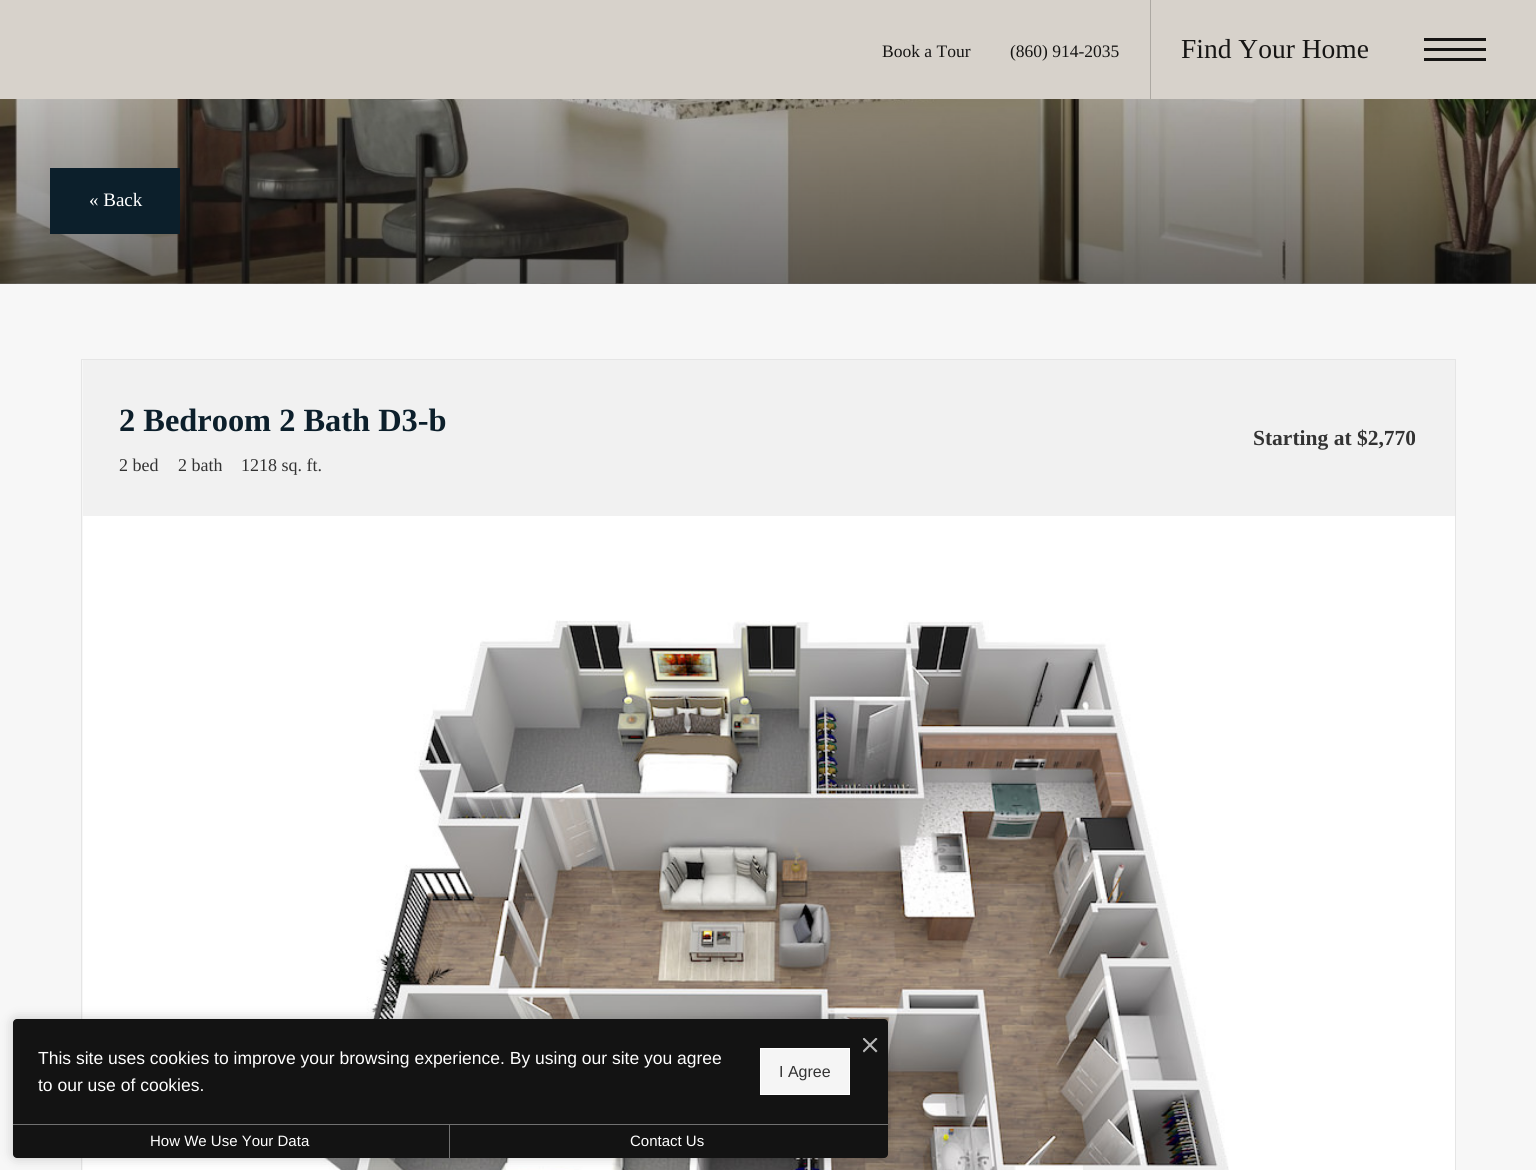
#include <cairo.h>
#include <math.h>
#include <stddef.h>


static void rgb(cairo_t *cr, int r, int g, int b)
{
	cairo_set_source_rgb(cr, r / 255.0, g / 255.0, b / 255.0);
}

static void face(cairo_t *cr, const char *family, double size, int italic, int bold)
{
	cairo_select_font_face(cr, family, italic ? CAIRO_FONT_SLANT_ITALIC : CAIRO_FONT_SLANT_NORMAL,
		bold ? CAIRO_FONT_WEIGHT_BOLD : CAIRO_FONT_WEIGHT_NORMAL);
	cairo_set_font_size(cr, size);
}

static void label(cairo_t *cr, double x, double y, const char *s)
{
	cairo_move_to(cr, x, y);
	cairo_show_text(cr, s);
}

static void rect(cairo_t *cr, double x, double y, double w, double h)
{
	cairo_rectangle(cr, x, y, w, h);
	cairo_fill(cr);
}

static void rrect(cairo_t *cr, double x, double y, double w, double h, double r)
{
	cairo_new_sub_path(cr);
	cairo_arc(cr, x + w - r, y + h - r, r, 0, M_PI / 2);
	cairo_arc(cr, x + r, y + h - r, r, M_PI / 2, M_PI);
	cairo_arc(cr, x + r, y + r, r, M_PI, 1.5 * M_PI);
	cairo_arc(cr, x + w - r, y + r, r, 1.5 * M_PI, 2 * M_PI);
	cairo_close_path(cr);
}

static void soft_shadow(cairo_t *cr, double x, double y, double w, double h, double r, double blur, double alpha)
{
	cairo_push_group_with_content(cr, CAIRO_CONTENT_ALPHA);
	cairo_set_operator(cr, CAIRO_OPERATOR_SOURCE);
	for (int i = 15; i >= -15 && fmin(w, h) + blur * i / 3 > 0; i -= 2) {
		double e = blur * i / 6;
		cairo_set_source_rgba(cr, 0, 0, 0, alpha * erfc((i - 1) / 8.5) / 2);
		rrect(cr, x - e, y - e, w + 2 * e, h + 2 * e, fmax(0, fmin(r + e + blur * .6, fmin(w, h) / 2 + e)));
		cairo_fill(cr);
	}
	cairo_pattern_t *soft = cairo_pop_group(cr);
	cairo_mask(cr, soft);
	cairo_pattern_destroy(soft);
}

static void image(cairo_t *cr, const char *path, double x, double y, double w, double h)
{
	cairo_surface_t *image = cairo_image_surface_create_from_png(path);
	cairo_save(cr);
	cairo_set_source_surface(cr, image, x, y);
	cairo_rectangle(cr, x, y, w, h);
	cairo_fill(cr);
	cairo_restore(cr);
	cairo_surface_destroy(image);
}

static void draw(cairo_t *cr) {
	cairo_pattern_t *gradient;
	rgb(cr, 247, 247, 247);
	cairo_paint(cr);
	rgb(cr, 215, 210, 203);
	rect(cr, 0, 0, 1536, 99);
	face(cr, "Liberation Serif", 17.5, 0, 0);
	rgb(cr, 22, 21, 20);
	label(cr, 882, 57, "Book a Tour");
	label(cr, 1010, 57, "(860) 914-2035");
	rgb(cr, 172, 168, 162);
	rect(cr, 1150, 0, 1, 99);
	face(cr, "Liberation Serif", 27.5, 0, 0);
	rgb(cr, 22, 21, 20);
	label(cr, 1181, 58, "Find Your Home");
	rect(cr, 1424, 38, 62, 3);
	rect(cr, 1424, 48, 62, 3);
	rect(cr, 1424, 58, 62, 3);
	image(cr, "image0.png", 0, 283, 1536, 1);
	image(cr, "image1.png", 0, 99, 1536, 185);
	gradient = cairo_pattern_create_linear(768, -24, 768, 284);
	cairo_pattern_add_color_stop_rgba(gradient, 0, 0, 0, 0, 0);
	cairo_pattern_add_color_stop_rgba(gradient, 1, 0, 0, 0, 0.5);
	cairo_set_source(cr, gradient);
	cairo_pattern_destroy(gradient);
	rect(cr, 0, 99, 1536, 185);
	rgb(cr, 12, 31, 43);
	rect(cr, 50, 168, 130, 66);
	face(cr, "Liberation Serif", 19, 0, 0);
	rgb(cr, 255, 255, 255);
	label(cr, 89, 206, "« Back");
	cairo_rectangle(cr, 81.5, 359.5, 1374, 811);
	rgb(cr, 229, 229, 229);
	cairo_set_line_width(cr, 1);
	cairo_stroke(cr);
	rgb(cr, 241, 241, 241);
	rect(cr, 83, 360, 1372, 156);
	face(cr, "Liberation Serif", 32.4, 0, 1);
	rgb(cr, 12, 31, 43);
	label(cr, 119, 431, "2 Bedroom 2 Bath D3-b");
	face(cr, "Liberation Serif", 18, 0, 0);
	rgb(cr, 51, 51, 51);
	label(cr, 119, 471, "2 bed");
	label(cr, 178, 471, "2 bath");
	label(cr, 241, 471, "1218 sq. ft.");
	face(cr, "Liberation Serif", 21.5, 0, 1);
	label(cr, 1253, 445, "Starting at $2,770");
	rgb(cr, 255, 255, 255);
	rect(cr, 83, 516, 1372, 654);
	image(cr, "image2.png", 319, 620, 910, 550);
	rgb(cr, 0, 0, 0);
	soft_shadow(cr, 13, 1019, 875, 139, 4, 6, 0.2);
	rgb(cr, 19, 19, 19);
	rrect(cr, 13, 1019, 875, 139, 4);
	cairo_fill(cr);
	image(cr, "image3.png", 863, 1038, 15, 15);
	face(cr, "Liberation Sans", 17.5, 0, 0);
	rgb(cr, 255, 255, 255);
	label(cr, 38, 1064, "This site uses cookies to improve your browsing experience. By using our site you agree");
	label(cr, 38, 1091, "to our use of cookies.");
	rgb(cr, 245, 245, 245);
	cairo_rectangle(cr, 760.5, 1048.5, 89, 46);
	cairo_fill_preserve(cr);
	rgb(cr, 255, 255, 255);
	cairo_stroke(cr);
	face(cr, "Liberation Sans", 16, 0, 0);
	rgb(cr, 51, 51, 51);
	label(cr, 779, 1077, "I Agree");
	rgb(cr, 113, 113, 113);
	rect(cr, 13, 1124, 875, 1);
	rect(cr, 449, 1125, 1, 33);
	face(cr, "Liberation Sans", 15, 0, 0);
	rgb(cr, 255, 255, 255);
	label(cr, 150, 1146, "How We Use Your Data");
	label(cr, 630, 1146, "Contact Us");
}

int main(void) {
	cairo_surface_t *surface = cairo_image_surface_create(CAIRO_FORMAT_RGB24, 1536, 1170);
	cairo_t *cr = cairo_create(surface);
	cairo_font_options_t *options = cairo_font_options_create();
	cairo_font_options_set_hint_metrics(options, CAIRO_HINT_METRICS_OFF);
	cairo_font_options_set_hint_style(options, CAIRO_HINT_STYLE_NONE);
	cairo_set_font_options(cr, options);
	cairo_set_miter_limit(cr, 4);
	draw(cr);
	cairo_surface_write_to_png(surface, "render.png");
	cairo_font_options_destroy(options);
	cairo_destroy(cr);
	cairo_surface_destroy(surface);
	return 0;
}
